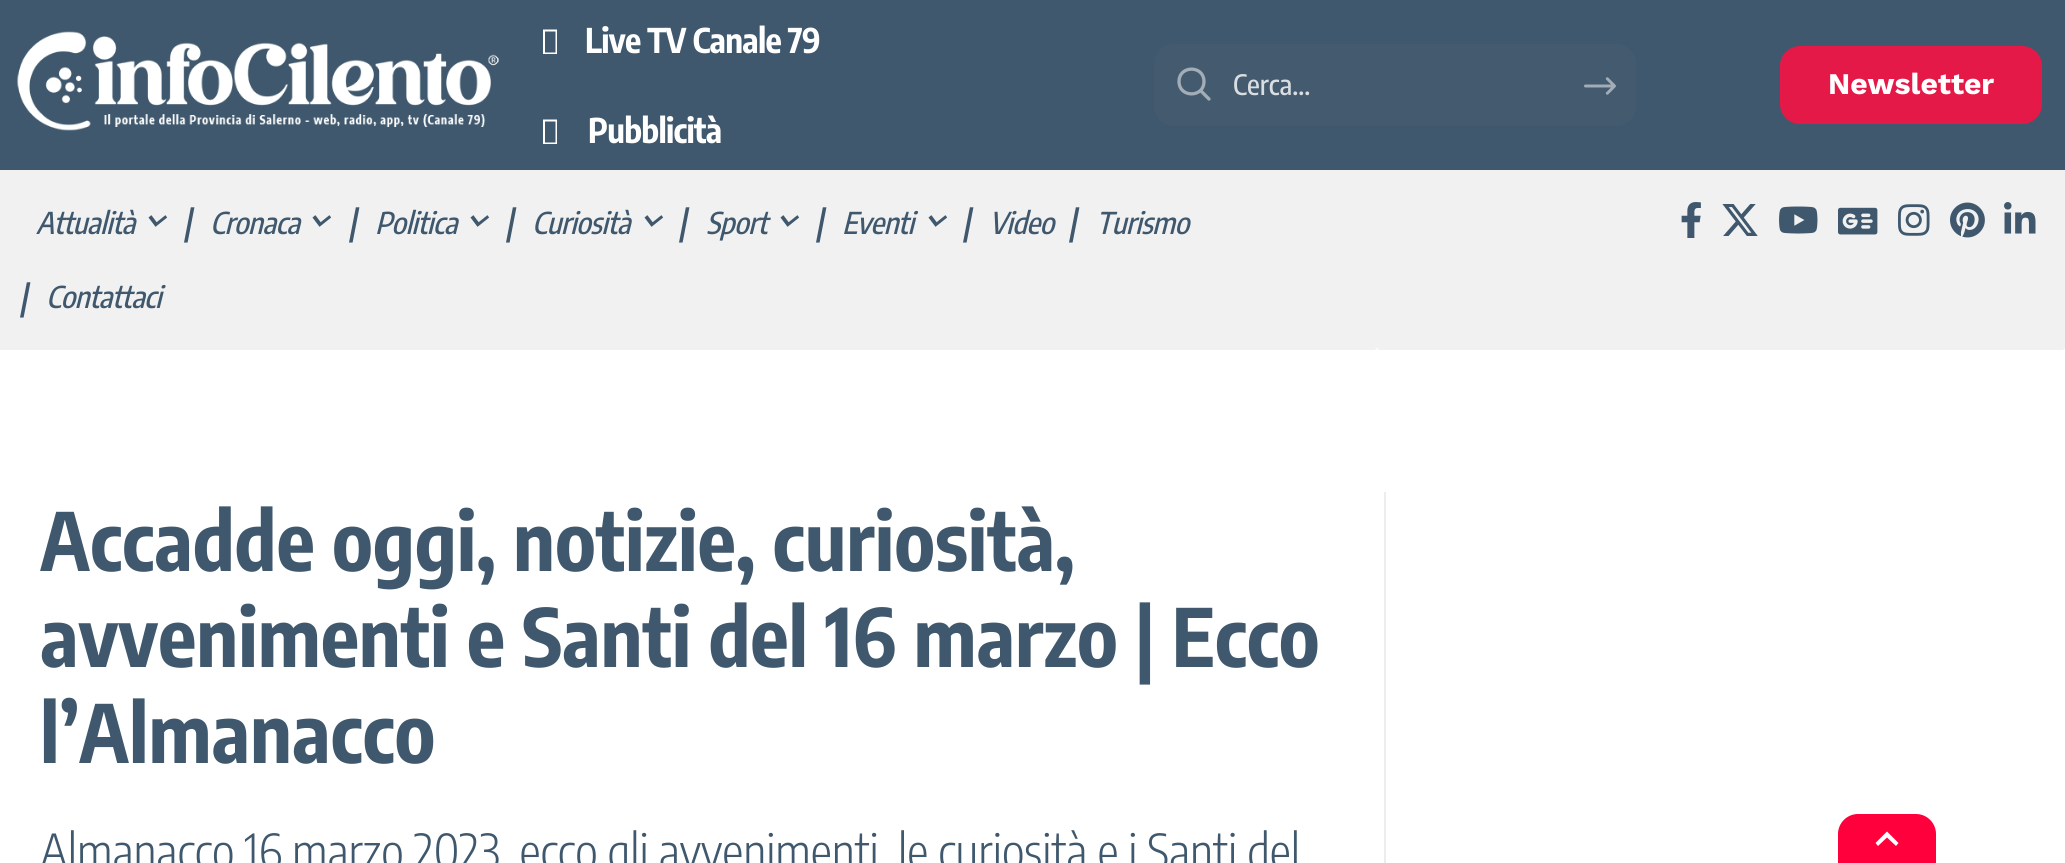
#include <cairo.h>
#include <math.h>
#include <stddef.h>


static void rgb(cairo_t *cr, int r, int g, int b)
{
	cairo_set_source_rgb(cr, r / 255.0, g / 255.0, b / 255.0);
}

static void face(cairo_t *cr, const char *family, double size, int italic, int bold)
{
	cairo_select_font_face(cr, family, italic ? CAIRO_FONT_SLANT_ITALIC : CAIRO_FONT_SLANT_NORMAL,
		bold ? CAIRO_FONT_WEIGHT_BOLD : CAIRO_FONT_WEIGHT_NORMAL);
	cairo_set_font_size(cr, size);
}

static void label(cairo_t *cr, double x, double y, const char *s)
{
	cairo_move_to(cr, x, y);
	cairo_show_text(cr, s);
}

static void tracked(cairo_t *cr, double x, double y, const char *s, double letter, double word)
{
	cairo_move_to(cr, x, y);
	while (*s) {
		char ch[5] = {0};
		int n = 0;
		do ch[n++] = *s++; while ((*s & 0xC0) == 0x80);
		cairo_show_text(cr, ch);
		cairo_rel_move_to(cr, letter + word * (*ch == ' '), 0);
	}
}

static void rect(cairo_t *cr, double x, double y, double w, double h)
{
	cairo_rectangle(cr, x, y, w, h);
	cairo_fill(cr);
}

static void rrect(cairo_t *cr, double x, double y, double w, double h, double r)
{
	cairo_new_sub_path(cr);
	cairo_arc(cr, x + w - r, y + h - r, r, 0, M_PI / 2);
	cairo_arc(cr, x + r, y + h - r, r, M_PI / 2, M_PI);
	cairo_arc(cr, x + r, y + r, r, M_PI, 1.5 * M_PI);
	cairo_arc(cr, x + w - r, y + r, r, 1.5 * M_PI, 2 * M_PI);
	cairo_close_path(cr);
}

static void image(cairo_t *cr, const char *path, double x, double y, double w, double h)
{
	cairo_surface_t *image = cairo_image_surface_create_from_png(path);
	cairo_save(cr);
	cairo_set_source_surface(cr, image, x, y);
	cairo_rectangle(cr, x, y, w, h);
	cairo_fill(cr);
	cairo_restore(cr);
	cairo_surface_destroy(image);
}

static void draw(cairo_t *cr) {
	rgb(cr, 255, 255, 255);
	cairo_paint(cr);
	rgb(cr, 63, 88, 109);
	rect(cr, 0, 0, 2065, 170);
	image(cr, "image0.png", 17, 31, 482, 100);
	rgb(cr, 255, 255, 255);
	cairo_new_path(cr);
	cairo_move_to(cr, 543, 54);
	cairo_line_to(cr, 543, 29.5);
	cairo_line_to(cr, 557, 29.5);
	cairo_line_to(cr, 557, 54);
	cairo_close_path(cr);
	cairo_move_to(cr, 545, 52.5);
	cairo_line_to(cr, 555.5, 52.5);
	cairo_line_to(cr, 555.5, 31.5);
	cairo_line_to(cr, 545, 31.5);
	cairo_close_path(cr);
	cairo_fill(cr);
	face(cr, "Encode Sans Condensed", 34, 0, 1);
	tracked(cr, 585, 53, "Live TV Canale 79", -0.7, 0);
	cairo_new_path(cr);
	cairo_move_to(cr, 543, 144);
	cairo_line_to(cr, 543, 119.5);
	cairo_line_to(cr, 557, 119.5);
	cairo_line_to(cr, 557, 144);
	cairo_close_path(cr);
	cairo_move_to(cr, 545, 142.5);
	cairo_line_to(cr, 555.5, 142.5);
	cairo_line_to(cr, 555.5, 121.5);
	cairo_line_to(cr, 545, 121.5);
	cairo_close_path(cr);
	cairo_fill(cr);
	tracked(cr, 588, 143, "Pubblicità", -0.7, 0);
	rgb(cr, 68, 91, 111);
	rrect(cr, 1154, 44, 482, 82, 20);
	cairo_fill(cr);
	cairo_new_path(cr);
	cairo_move_to(cr, 1200.5, 90.5);
	cairo_line_to(cr, 1209, 99);
	cairo_move_to(cr, 1204, 81.5);
	cairo_curve_to(cr, 1204, 98, 1179, 98, 1179, 81.5);
	cairo_curve_to(cr, 1179, 65, 1204, 65, 1204, 81.5);
	cairo_close_path(cr);
	rgb(cr, 162, 173, 183);
	cairo_set_line_width(cr, 3.3);
	cairo_set_line_cap(cr, CAIRO_LINE_CAP_ROUND);
	cairo_set_line_join(cr, CAIRO_LINE_JOIN_ROUND);
	cairo_stroke(cr);
	face(cr, "Encode Sans Condensed Medium", 28, 0, 0);
	rgb(cr, 218, 222, 226);
	label(cr, 1233, 95, "Cerca...");
	image(cr, "image1.png", 1584, 77, 32, 18);
	rgb(cr, 229, 25, 71);
	rrect(cr, 1780, 46, 262, 78, 20);
	cairo_fill(cr);
	face(cr, "Work Sans", 30, 0, 1);
	rgb(cr, 255, 255, 255);
	label(cr, 1828, 94, "Newsletter");
	rgb(cr, 241, 241, 241);
	cairo_new_path(cr);
	cairo_move_to(cr, 0, 170);
	cairo_line_to(cr, 1378, 170);
	cairo_line_to(cr, 1378, 346);
	cairo_curve_to(cr, 1378, 348, 1376, 350, 1374, 350);
	cairo_line_to(cr, 0, 350);
	cairo_close_path(cr);
	cairo_fill(cr);
	face(cr, "Encode Sans Condensed Medium", 30, 1, 0);
	rgb(cr, 63, 88, 109);
	tracked(cr, 36, 234, "Attualità", -0.5, 0);
	image(cr, "image2.png", 148, 215, 20, 12);
	face(cr, "Encode Sans Condensed Medium", 38, 0, 0);
	label(cr, 184, 238, "/");
	face(cr, "Encode Sans Condensed Medium", 30, 1, 0);
	tracked(cr, 210, 234, "Cronaca", -0.5, 0);
	image(cr, "image2.png", 312, 215, 20, 12);
	face(cr, "Encode Sans Condensed Medium", 38, 0, 0);
	label(cr, 349, 238, "/");
	face(cr, "Encode Sans Condensed Medium", 30, 1, 0);
	tracked(cr, 375, 234, "Politica", -0.5, 0);
	image(cr, "image2.png", 470, 215, 20, 12);
	face(cr, "Encode Sans Condensed Medium", 38, 0, 0);
	label(cr, 506, 238, "/");
	face(cr, "Encode Sans Condensed Medium", 30, 1, 0);
	tracked(cr, 532, 234, "Curiosità", -0.5, 0);
	image(cr, "image2.png", 644, 215, 20, 12);
	face(cr, "Encode Sans Condensed Medium", 38, 0, 0);
	label(cr, 679, 238, "/");
	face(cr, "Encode Sans Condensed Medium", 30, 1, 0);
	tracked(cr, 706, 234, "Sport", -0.5, 0);
	image(cr, "image2.png", 780, 215, 20, 12);
	face(cr, "Encode Sans Condensed Medium", 38, 0, 0);
	label(cr, 816, 238, "/");
	face(cr, "Encode Sans Condensed Medium", 30, 1, 0);
	tracked(cr, 842, 234, "Eventi", -0.5, 0);
	image(cr, "image2.png", 928, 215, 20, 12);
	face(cr, "Encode Sans Condensed Medium", 38, 0, 0);
	label(cr, 963, 238, "/");
	face(cr, "Encode Sans Condensed Medium", 30, 1, 0);
	tracked(cr, 989, 234, "Video", -0.5, 0);
	face(cr, "Encode Sans Condensed Medium", 38, 0, 0);
	label(cr, 1069, 238, "/");
	face(cr, "Encode Sans Condensed Medium", 30, 1, 0);
	tracked(cr, 1096, 234, "Turismo", -0.5, 0);
	face(cr, "Encode Sans Condensed Medium", 38, 0, 0);
	label(cr, 20, 313, "/");
	face(cr, "Encode Sans Condensed Medium", 30, 1, 0);
	tracked(cr, 46, 308, "Contattaci", -0.5, 0);
	rgb(cr, 241, 241, 241);
	cairo_new_path(cr);
	cairo_move_to(cr, 1378, 170);
	cairo_line_to(cr, 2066, 170);
	cairo_line_to(cr, 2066, 346);
	cairo_curve_to(cr, 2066, 348, 2064, 350, 2062, 350);
	cairo_line_to(cr, 1378, 350);
	cairo_close_path(cr);
	cairo_fill(cr);
	image(cr, "image3.png", 1681, 202, 20, 36);
	image(cr, "image4.png", 1722, 204, 36, 32);
	image(cr, "image5.png", 1779, 206, 39, 28);
	image(cr, "image6.png", 1838, 207, 40, 28);
	image(cr, "image7.png", 1898, 204, 32, 32);
	image(cr, "image8.png", 1950, 202, 35, 36);
	image(cr, "image9.png", 2004, 202, 32, 32);
	face(cr, "Encode Sans Condensed", 80, 0, 1);
	rgb(cr, 63, 88, 109);
	label(cr, 40, 571, "Accadde oggi, notizie, curiosità,");
	label(cr, 40, 667, "avvenimenti e Santi del 16 marzo | Ecco");
	label(cr, 40, 763, "l’Almanacco");
	face(cr, "Encode Sans Condensed Light", 48, 0, 0);
	label(cr, 40, 869, "Almanacco 16 marzo 2023, ecco gli avvenimenti, le curiosità e i Santi del");
	rgb(cr, 237, 237, 237);
	rect(cr, 1384, 492, 2, 371);
	rgb(cr, 255, 0, 60);
	cairo_new_path(cr);
	cairo_move_to(cr, 1858, 814);
	cairo_line_to(cr, 1916, 814);
	cairo_curve_to(cr, 1927, 814, 1936, 823, 1936, 834);
	cairo_line_to(cr, 1936, 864);
	cairo_line_to(cr, 1838, 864);
	cairo_line_to(cr, 1838, 834);
	cairo_curve_to(cr, 1838, 823, 1847, 814, 1858, 814);
	cairo_close_path(cr);
	cairo_fill(cr);
	rgb(cr, 255, 255, 255);
	cairo_new_path(cr);
	cairo_move_to(cr, 1888.5, 833);
	cairo_line_to(cr, 1887, 831.5);
	cairo_line_to(cr, 1875.5, 843);
	cairo_line_to(cr, 1878, 846);
	cairo_line_to(cr, 1887, 837.5);
	cairo_line_to(cr, 1896, 846);
	cairo_line_to(cr, 1898.5, 843);
	cairo_close_path(cr);
	cairo_fill(cr);
}

int main(void) {
	cairo_surface_t *surface = cairo_image_surface_create(CAIRO_FORMAT_RGB24, 2065, 863);
	cairo_t *cr = cairo_create(surface);
	cairo_font_options_t *options = cairo_font_options_create();
	cairo_font_options_set_hint_metrics(options, CAIRO_HINT_METRICS_OFF);
	cairo_font_options_set_hint_style(options, CAIRO_HINT_STYLE_NONE);
	cairo_set_font_options(cr, options);
	cairo_set_miter_limit(cr, 4);
	draw(cr);
	cairo_surface_write_to_png(surface, "render.png");
	cairo_font_options_destroy(options);
	cairo_destroy(cr);
	cairo_surface_destroy(surface);
	return 0;
}
